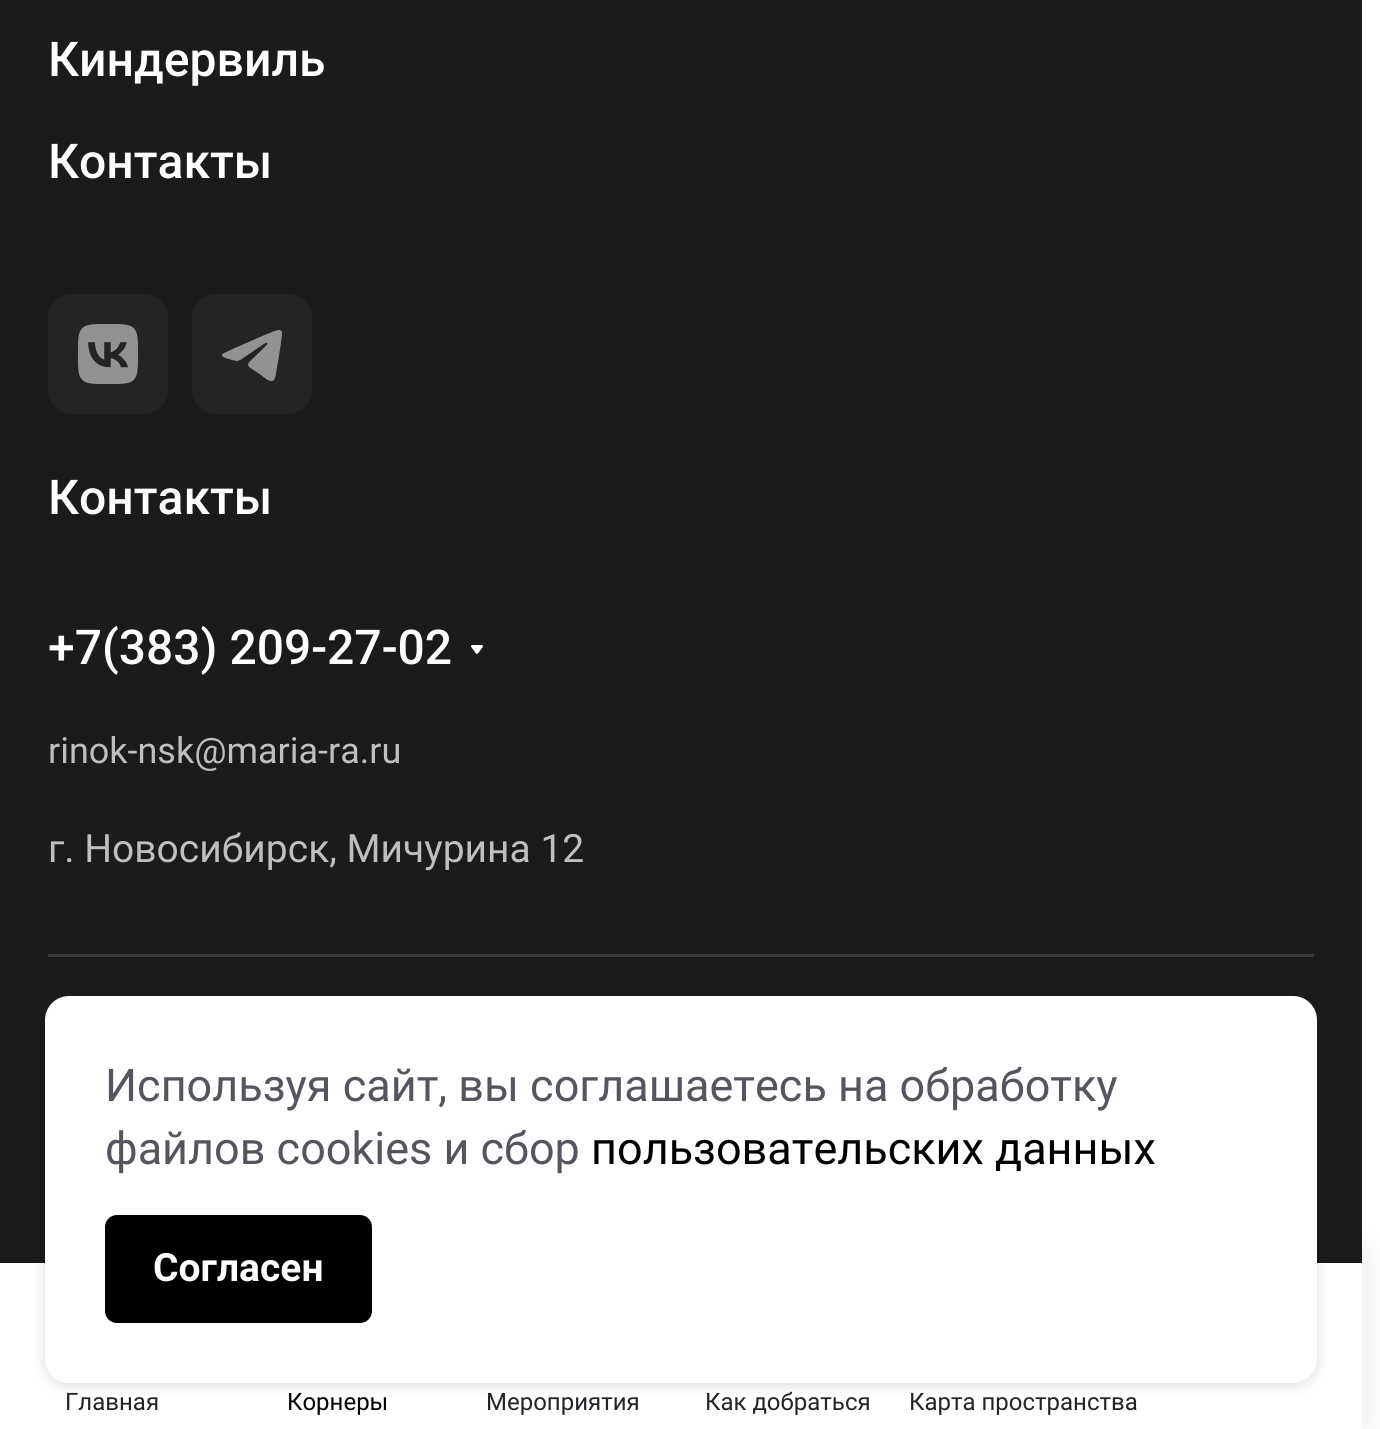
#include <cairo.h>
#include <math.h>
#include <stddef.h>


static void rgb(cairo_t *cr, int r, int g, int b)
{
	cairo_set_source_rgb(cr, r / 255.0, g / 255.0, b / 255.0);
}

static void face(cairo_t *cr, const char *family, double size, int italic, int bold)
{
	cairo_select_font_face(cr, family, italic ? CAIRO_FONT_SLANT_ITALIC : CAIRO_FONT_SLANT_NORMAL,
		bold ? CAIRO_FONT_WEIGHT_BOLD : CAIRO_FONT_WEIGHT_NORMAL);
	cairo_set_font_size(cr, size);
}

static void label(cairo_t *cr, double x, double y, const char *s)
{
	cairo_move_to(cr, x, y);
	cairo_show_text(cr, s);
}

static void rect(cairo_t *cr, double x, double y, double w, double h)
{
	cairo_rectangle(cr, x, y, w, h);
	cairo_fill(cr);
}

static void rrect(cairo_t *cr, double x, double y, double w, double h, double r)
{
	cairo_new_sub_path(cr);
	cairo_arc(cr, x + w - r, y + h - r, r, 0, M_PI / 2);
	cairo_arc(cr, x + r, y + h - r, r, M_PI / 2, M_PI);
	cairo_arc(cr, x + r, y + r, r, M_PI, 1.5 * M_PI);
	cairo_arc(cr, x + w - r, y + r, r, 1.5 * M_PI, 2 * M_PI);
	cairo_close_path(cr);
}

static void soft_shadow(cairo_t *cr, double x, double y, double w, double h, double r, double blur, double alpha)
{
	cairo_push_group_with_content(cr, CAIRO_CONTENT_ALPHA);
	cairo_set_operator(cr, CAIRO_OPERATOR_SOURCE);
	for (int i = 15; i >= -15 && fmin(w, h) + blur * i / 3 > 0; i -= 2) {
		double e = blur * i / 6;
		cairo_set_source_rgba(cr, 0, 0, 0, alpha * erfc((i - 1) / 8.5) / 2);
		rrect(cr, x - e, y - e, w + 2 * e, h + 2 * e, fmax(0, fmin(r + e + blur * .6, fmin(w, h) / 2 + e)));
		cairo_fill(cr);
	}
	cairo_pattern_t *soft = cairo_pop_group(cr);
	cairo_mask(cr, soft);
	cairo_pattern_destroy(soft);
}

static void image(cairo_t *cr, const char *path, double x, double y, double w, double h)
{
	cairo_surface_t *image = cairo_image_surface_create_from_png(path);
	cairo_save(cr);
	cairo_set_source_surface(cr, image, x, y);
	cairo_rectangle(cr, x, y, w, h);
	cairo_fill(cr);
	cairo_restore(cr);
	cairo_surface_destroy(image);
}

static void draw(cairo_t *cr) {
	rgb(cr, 255, 255, 255);
	cairo_paint(cr);
	rgb(cr, 27, 27, 27);
	rect(cr, 0, 0, 1362, 1263);
	face(cr, "Roboto Medium", 48, 0, 0);
	rgb(cr, 255, 255, 255);
	label(cr, 48, 76, "Киндервиль");
	label(cr, 48, 178, "Контакты");
	rgb(cr, 36, 36, 36);
	rrect(cr, 48, 294, 120, 120, 24);
	cairo_fill(cr);
	image(cr, "image0.png", 78, 324, 60, 60);
	rrect(cr, 192, 294, 120, 120, 24);
	cairo_fill(cr);
	image(cr, "image1.png", 222, 330, 60, 51);
	rgb(cr, 255, 255, 255);
	label(cr, 48, 514, "Контакты");
	label(cr, 48, 664, "+7(383) 209-27-02");
	image(cr, "image2.png", 471, 645, 12, 9);
	face(cr, "Roboto", 36, 0, 0);
	rgb(cr, 191, 191, 191);
	label(cr, 48, 763, "rinok-nsk@maria-ra.ru");
	face(cr, "Roboto", 39, 0, 0);
	label(cr, 48, 862, "г. Новосибирск, Мичурина 12");
	rgb(cr, 58, 58, 58);
	rect(cr, 48, 954, 1266, 3);
	rgb(cr, 0, 0, 0);
	soft_shadow(cr, 0, 1254, 1362, 168, 0, 15, 0.1);
	rgb(cr, 255, 255, 255);
	rect(cr, 0, 1263, 1362, 166);
	rgb(cr, 12, 12, 13);
	soft_shadow(cr, 45, 999, 1272, 387, 24, 6, 0.1);
	soft_shadow(cr, 45, 999, 1272, 387, 24, 6, 0.05);
	rgb(cr, 255, 255, 255);
	rrect(cr, 45, 996, 1272, 387, 24);
	cairo_fill(cr);
	face(cr, "Roboto", 45, 0, 0);
	rgb(cr, 85, 85, 96);
	label(cr, 105, 1101, "Используя сайт, вы соглашаетесь на обработку");
	label(cr, 105, 1164, "файлов cookies и сбор");
	rgb(cr, 0, 0, 0);
	label(cr, 591, 1164, "пользовательских данных");
	rrect(cr, 105, 1215, 267, 108, 12);
	cairo_fill(cr);
	face(cr, "Roboto", 39, 0, 1);
	rgb(cr, 255, 255, 255);
	label(cr, 153, 1281, "Согласен");
	face(cr, "Roboto", 24, 0, 0);
	rgb(cr, 34, 36, 40);
	label(cr, 65, 1410, "Главная");
	rgb(cr, 0, 0, 0);
	label(cr, 287, 1410, "Корнеры");
	rgb(cr, 34, 36, 40);
	label(cr, 486, 1410, "Мероприятия");
	label(cr, 705, 1410, "Как добраться");
	label(cr, 909, 1410, "Карта пространства");
}

int main(void) {
	cairo_surface_t *surface = cairo_image_surface_create(CAIRO_FORMAT_RGB24, 1380, 1429);
	cairo_t *cr = cairo_create(surface);
	cairo_font_options_t *options = cairo_font_options_create();
	cairo_font_options_set_hint_metrics(options, CAIRO_HINT_METRICS_OFF);
	cairo_font_options_set_hint_style(options, CAIRO_HINT_STYLE_NONE);
	cairo_set_font_options(cr, options);
	cairo_set_miter_limit(cr, 4);
	draw(cr);
	cairo_surface_write_to_png(surface, "render.png");
	cairo_font_options_destroy(options);
	cairo_destroy(cr);
	cairo_surface_destroy(surface);
	return 0;
}
